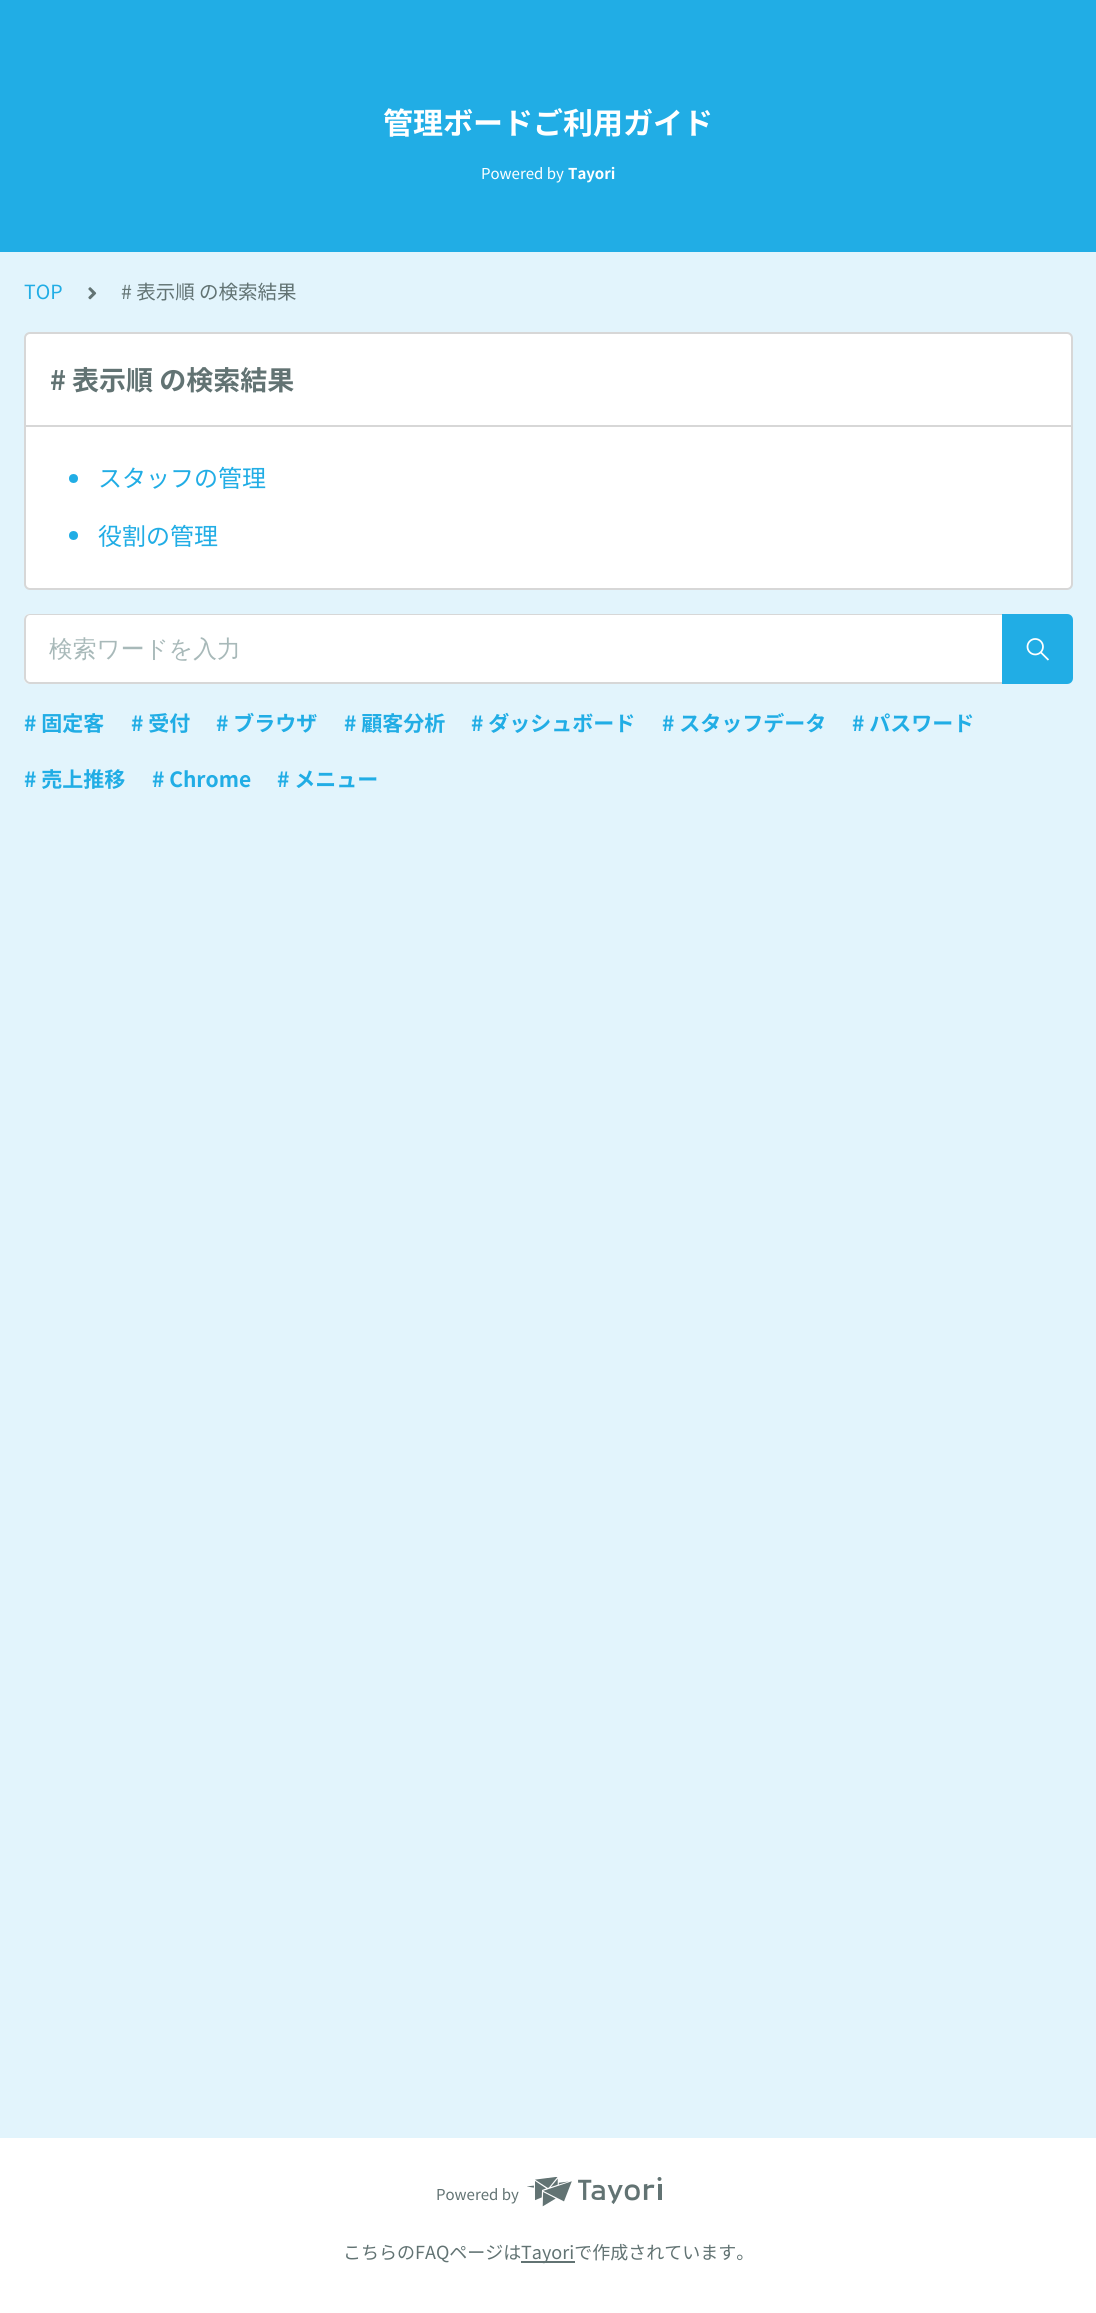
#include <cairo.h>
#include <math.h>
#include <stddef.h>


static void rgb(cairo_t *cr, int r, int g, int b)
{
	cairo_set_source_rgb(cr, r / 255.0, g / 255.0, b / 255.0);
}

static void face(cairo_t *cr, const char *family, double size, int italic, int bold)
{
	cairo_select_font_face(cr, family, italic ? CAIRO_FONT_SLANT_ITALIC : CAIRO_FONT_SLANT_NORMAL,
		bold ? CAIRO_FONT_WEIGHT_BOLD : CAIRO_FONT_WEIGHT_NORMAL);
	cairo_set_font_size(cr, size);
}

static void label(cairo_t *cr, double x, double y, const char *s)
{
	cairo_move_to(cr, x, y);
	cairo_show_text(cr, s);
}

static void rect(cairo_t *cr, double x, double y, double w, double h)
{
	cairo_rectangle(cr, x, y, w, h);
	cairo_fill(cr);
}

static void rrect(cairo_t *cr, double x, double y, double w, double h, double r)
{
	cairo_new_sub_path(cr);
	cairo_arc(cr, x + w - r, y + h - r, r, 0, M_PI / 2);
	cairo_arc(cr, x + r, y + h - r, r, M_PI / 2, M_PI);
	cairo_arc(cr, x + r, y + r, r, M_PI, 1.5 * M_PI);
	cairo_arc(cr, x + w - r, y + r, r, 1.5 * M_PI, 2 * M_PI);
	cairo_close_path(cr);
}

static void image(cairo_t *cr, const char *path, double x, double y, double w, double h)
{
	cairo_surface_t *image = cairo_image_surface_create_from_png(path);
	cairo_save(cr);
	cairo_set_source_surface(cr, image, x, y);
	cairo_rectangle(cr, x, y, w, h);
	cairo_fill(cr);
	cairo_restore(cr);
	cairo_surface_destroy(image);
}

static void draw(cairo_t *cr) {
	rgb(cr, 226, 244, 252);
	cairo_paint(cr);
	rgb(cr, 33, 173, 229);
	rect(cr, 0, 0, 1096, 252);
	face(cr, "Noto Sans JP", 30, 0, 1);
	rgb(cr, 255, 255, 255);
	label(cr, 383, 134, "管理ボードご利用ガイド");
	face(cr, "Noto Sans JP", 15, 0, 0);
	label(cr, 481, 179, "Powered by");
	face(cr, "Noto Sans JP", 15, 0, 1);
	label(cr, 568, 179, "Tayori");
	face(cr, "Noto Sans JP", 19.5, 0, 0);
	rgb(cr, 33, 173, 229);
	label(cr, 24, 299, "TOP");
	image(cr, "image0.png", 88, 287, 9, 13);
	rgb(cr, 98, 115, 115);
	label(cr, 121, 299, "# 表示順 の検索結果");
	rgb(cr, 255, 255, 255);
	rrect(cr, 25, 333, 1047, 256, 5);
	cairo_fill_preserve(cr);
	rgb(cr, 215, 215, 215);
	cairo_stroke(cr);
	rect(cr, 26, 425, 1045, 2);
	face(cr, "Noto Sans JP", 27, 0, 1);
	rgb(cr, 98, 115, 115);
	label(cr, 50, 390, "# 表示順 の検索結果");
	rgb(cr, 33, 173, 229);
	cairo_new_path(cr);
	cairo_arc(cr, 73.5, 478.5, 4.5, 0, 2 * M_PI);
	cairo_fill(cr);
	face(cr, "Noto Sans JP", 24, 0, 0);
	label(cr, 98, 487, "スタッフの管理");
	cairo_new_path(cr);
	cairo_arc(cr, 73.5, 535.5, 4.5, 0, 2 * M_PI);
	cairo_fill(cr);
	label(cr, 98, 545, "役割の管理");
	rgb(cr, 255, 255, 255);
	cairo_new_path(cr);
	cairo_move_to(cr, 30, 614);
	cairo_line_to(cr, 1002, 614);
	cairo_line_to(cr, 1002, 684);
	cairo_line_to(cr, 30, 684);
	cairo_curve_to(cr, 26.5, 684, 24, 681.5, 24, 678);
	cairo_line_to(cr, 24, 620);
	cairo_curve_to(cr, 24, 616.5, 26.5, 614, 30, 614);
	cairo_close_path(cr);
	cairo_fill(cr);
	rgb(cr, 215, 215, 215);
	cairo_set_fill_rule(cr, CAIRO_FILL_RULE_EVEN_ODD);
	cairo_new_path(cr);
	cairo_move_to(cr, 30, 614);
	cairo_line_to(cr, 1002, 614);
	cairo_line_to(cr, 1002, 684);
	cairo_line_to(cr, 30, 684);
	cairo_curve_to(cr, 27, 684, 24, 681, 24, 678);
	cairo_line_to(cr, 24, 620);
	cairo_curve_to(cr, 24, 616, 27, 614, 30, 614);
	cairo_close_path(cr);
	cairo_move_to(cr, 30, 615);
	cairo_line_to(cr, 1002, 615);
	cairo_line_to(cr, 1002, 682);
	cairo_line_to(cr, 30, 682);
	cairo_curve_to(cr, 28, 682, 26, 680, 26, 678);
	cairo_line_to(cr, 26, 620);
	cairo_curve_to(cr, 26, 617, 28, 615, 30, 615);
	cairo_close_path(cr);
	cairo_fill(cr);
	face(cr, "WenQuanYi Zen Hei Medium", 23.75, 0, 0);
	rgb(cr, 168, 185, 185);
	label(cr, 49, 657, "検索ワードを入力");
	rgb(cr, 33, 173, 229);
	cairo_new_path(cr);
	cairo_move_to(cr, 1002, 614);
	cairo_line_to(cr, 1067, 614);
	cairo_curve_to(cr, 1070.5, 614, 1073, 616.5, 1073, 620);
	cairo_line_to(cr, 1073, 678);
	cairo_curve_to(cr, 1073, 681.5, 1070.5, 684, 1067, 684);
	cairo_line_to(cr, 1002, 684);
	cairo_close_path(cr);
	cairo_fill(cr);
	image(cr, "image1.png", 1026, 638, 23, 23);
	face(cr, "Noto Sans JP", 21, 0, 1);
	label(cr, 24, 731, "# 固定客");
	label(cr, 131, 731, "# 受付");
	label(cr, 216, 731, "# ブラウザ");
	label(cr, 344, 731, "# 顧客分析");
	label(cr, 471, 731, "# ダッシュボード");
	label(cr, 662, 731, "# スタッフデータ");
	label(cr, 852, 731, "# パスワード");
	label(cr, 24, 787, "# 売上推移");
	label(cr, 152, 787, "# Chrome");
	label(cr, 277, 787, "# メニュー");
	rgb(cr, 255, 255, 255);
	rect(cr, 0, 2138, 1096, 175);
	face(cr, "Noto Sans JP", 15, 0, 0);
	rgb(cr, 98, 115, 115);
	label(cr, 436, 2200, "Powered by");
	image(cr, "image2.png", 527, 2177, 135, 30);
	face(cr, "Noto Sans JP", 18, 0, 0);
	label(cr, 343, 2259, "こちらのFAQページは");
	rect(cr, 521, 2261, 54, 2);
	label(cr, 521, 2259, "Tayoriで作成されています。");
}

int main(void) {
	cairo_surface_t *surface = cairo_image_surface_create(CAIRO_FORMAT_RGB24, 1096, 2313);
	cairo_t *cr = cairo_create(surface);
	cairo_font_options_t *options = cairo_font_options_create();
	cairo_font_options_set_hint_metrics(options, CAIRO_HINT_METRICS_OFF);
	cairo_font_options_set_hint_style(options, CAIRO_HINT_STYLE_NONE);
	cairo_set_font_options(cr, options);
	cairo_set_miter_limit(cr, 4);
	draw(cr);
	cairo_surface_write_to_png(surface, "render.png");
	cairo_font_options_destroy(options);
	cairo_destroy(cr);
	cairo_surface_destroy(surface);
	return 0;
}
